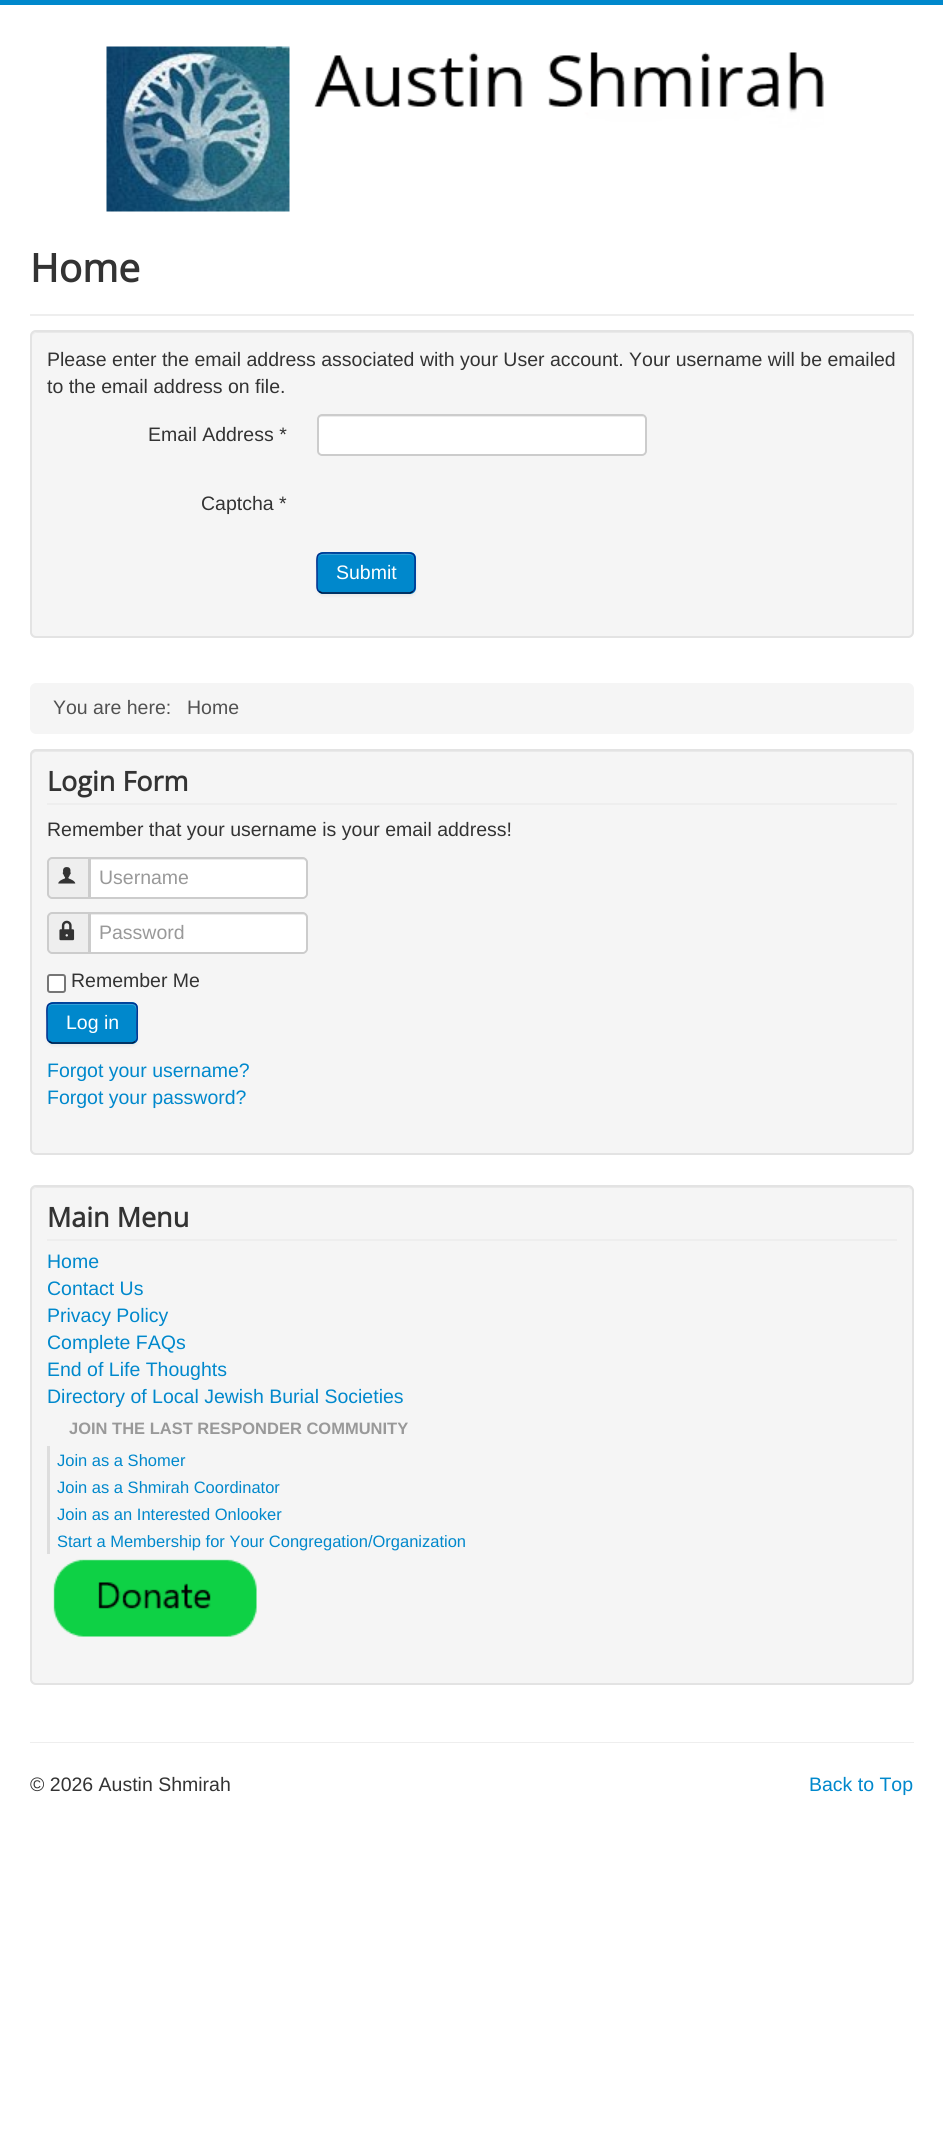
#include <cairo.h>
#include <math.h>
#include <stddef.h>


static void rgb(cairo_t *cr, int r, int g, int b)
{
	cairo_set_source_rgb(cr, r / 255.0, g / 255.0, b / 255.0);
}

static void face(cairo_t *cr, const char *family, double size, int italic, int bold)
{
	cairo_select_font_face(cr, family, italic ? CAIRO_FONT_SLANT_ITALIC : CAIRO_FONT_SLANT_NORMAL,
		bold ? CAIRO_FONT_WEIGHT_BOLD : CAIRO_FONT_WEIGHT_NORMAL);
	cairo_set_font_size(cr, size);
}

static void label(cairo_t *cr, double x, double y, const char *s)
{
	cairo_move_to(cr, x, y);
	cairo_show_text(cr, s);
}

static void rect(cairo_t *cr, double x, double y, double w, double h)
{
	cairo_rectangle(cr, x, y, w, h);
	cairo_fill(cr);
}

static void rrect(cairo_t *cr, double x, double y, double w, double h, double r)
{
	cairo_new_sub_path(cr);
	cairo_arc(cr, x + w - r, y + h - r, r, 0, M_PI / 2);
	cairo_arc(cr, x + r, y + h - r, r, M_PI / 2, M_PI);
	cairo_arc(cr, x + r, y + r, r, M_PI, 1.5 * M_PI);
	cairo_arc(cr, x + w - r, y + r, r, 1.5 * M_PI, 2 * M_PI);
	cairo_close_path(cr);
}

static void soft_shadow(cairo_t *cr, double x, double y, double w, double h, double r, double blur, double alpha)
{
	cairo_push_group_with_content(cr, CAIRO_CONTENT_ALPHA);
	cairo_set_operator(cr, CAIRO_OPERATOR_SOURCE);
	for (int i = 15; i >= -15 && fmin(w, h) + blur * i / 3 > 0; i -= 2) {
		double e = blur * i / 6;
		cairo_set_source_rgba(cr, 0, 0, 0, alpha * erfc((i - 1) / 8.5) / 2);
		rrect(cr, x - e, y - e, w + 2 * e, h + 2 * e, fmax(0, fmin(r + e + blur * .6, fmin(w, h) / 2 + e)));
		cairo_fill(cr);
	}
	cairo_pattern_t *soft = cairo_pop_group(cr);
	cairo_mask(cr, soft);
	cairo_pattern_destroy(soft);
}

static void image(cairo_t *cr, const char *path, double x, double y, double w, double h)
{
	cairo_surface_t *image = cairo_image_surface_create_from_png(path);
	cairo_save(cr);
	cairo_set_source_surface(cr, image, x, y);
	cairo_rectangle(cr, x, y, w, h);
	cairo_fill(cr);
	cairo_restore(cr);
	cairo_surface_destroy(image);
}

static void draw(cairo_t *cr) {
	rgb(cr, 255, 255, 255);
	cairo_paint(cr);
	rgb(cr, 0, 136, 204);
	rect(cr, 0, 0, 943, 5);
	image(cr, "image0.png", 106, 46, 718, 166);
	rgb(cr, 238, 238, 238);
	rect(cr, 30, 314, 884, 2);
	face(cr, "Open Sans", 39, 0, 1);
	rgb(cr, 51, 51, 51);
	label(cr, 30, 282, "Home");
	rgb(cr, 245, 245, 245);
	rrect(cr, 30, 330, 884, 308, 6);
	cairo_fill(cr);
	rgb(cr, 233, 233, 233);
	cairo_new_path(cr);
	cairo_move_to(cr, 36, 333);
	cairo_line_to(cr, 908, 333);
	cairo_curve_to(cr, 910, 333, 912, 335, 912, 338);
	cairo_line_to(cr, 912, 337);
	cairo_curve_to(cr, 912, 334, 910, 332, 907, 332);
	cairo_line_to(cr, 37, 332);
	cairo_curve_to(cr, 34, 332, 32, 334, 32, 337);
	cairo_line_to(cr, 32, 338);
	cairo_curve_to(cr, 32, 335, 34, 333, 36, 333);
	cairo_close_path(cr);
	cairo_fill(cr);
	rrect(cr, 31, 331, 882, 306, 5);
	rgb(cr, 227, 227, 227);
	cairo_stroke(cr);
	face(cr, "Liberation Sans", 19.5, 0, 0);
	rgb(cr, 51, 51, 51);
	label(cr, 47, 366, "Please enter the email address associated with your User account. Your username will be emailed");
	label(cr, 47, 393, "to the email address on file.");
	label(cr, 148, 441, "Email Address *");
	rgb(cr, 255, 255, 255);
	rrect(cr, 317, 414, 330, 42, 5);
	cairo_fill(cr);
	rgb(cr, 236, 236, 236);
	cairo_new_path(cr);
	cairo_move_to(cr, 321, 417);
	cairo_line_to(cr, 642, 417);
	cairo_curve_to(cr, 644, 417, 645, 418, 645, 420);
	cairo_curve_to(cr, 645, 418, 644, 416, 642, 416);
	cairo_line_to(cr, 321, 416);
	cairo_curve_to(cr, 319, 416, 318, 418, 318, 420);
	cairo_curve_to(cr, 318, 418, 319, 417, 321, 417);
	cairo_close_path(cr);
	cairo_fill(cr);
	rrect(cr, 318, 415, 328, 40, 4);
	rgb(cr, 204, 204, 204);
	cairo_stroke(cr);
	rgb(cr, 51, 51, 51);
	label(cr, 201, 510, "Captcha *");
	rgb(cr, 0, 0, 0);
	soft_shadow(cr, 317, 554, 99, 42, 6, 1.5, 0.05);
	rgb(cr, 0, 136, 204);
	rrect(cr, 317, 552, 99, 42, 6);
	cairo_fill(cr);
	rgb(cr, 51, 160, 214);
	cairo_new_path(cr);
	cairo_move_to(cr, 322, 555);
	cairo_line_to(cr, 410, 555);
	cairo_curve_to(cr, 412, 555, 414, 557, 414, 560);
	cairo_curve_to(cr, 414, 550, 400, 554, 395, 554);
	cairo_line_to(cr, 337, 554);
	cairo_curve_to(cr, 332, 554, 318, 550, 318, 560);
	cairo_curve_to(cr, 318, 557, 320, 555, 322, 555);
	cairo_close_path(cr);
	cairo_fill(cr);
	cairo_new_path(cr);
	cairo_move_to(cr, 413, 591.5);
	cairo_line_to(cr, 410, 593);
	cairo_line_to(cr, 322, 593);
	cairo_line_to(cr, 319, 591.5);
	rgb(cr, 0, 22, 65);
	cairo_set_line_width(cr, 1.5);
	cairo_stroke(cr);
	cairo_new_path(cr);
	cairo_move_to(cr, 319, 591.5);
	cairo_curve_to(cr, 316.5, 589.5, 317, 586, 317, 583);
	cairo_line_to(cr, 317, 573);
	cairo_curve_to(cr, 317, 550.5, 314, 553, 337, 553);
	cairo_line_to(cr, 395, 553);
	cairo_curve_to(cr, 418, 553, 415, 550.5, 415, 573);
	cairo_line_to(cr, 415, 583);
	cairo_curve_to(cr, 415, 586, 415.5, 589.5, 413, 591.5);
	rgb(cr, 0, 47, 141);
	cairo_stroke(cr);
	rgb(cr, 255, 255, 255);
	label(cr, 336, 579, "Submit");
	rgb(cr, 245, 245, 245);
	rrect(cr, 30, 683, 884, 51, 6);
	cairo_fill(cr);
	rgb(cr, 81, 81, 81);
	label(cr, 53, 714, "You are here:");
	label(cr, 187, 714, "Home");
	rgb(cr, 245, 245, 245);
	rrect(cr, 30, 749, 884, 406, 6);
	cairo_fill(cr);
	rgb(cr, 233, 233, 233);
	cairo_new_path(cr);
	cairo_move_to(cr, 36, 752);
	cairo_line_to(cr, 908, 752);
	cairo_curve_to(cr, 910, 752, 912, 754, 912, 756);
	cairo_line_to(cr, 912, 755);
	cairo_curve_to(cr, 912, 752, 910, 750, 907, 750);
	cairo_line_to(cr, 37, 750);
	cairo_curve_to(cr, 34, 750, 32, 752, 32, 755);
	cairo_line_to(cr, 32, 756);
	cairo_curve_to(cr, 32, 754, 34, 752, 36, 752);
	cairo_close_path(cr);
	cairo_fill(cr);
	rrect(cr, 31, 750, 882, 404, 5);
	rgb(cr, 227, 227, 227);
	cairo_set_line_width(cr, 2);
	cairo_stroke(cr);
	rgb(cr, 238, 238, 238);
	rect(cr, 47, 803, 850, 2);
	face(cr, "Open Sans", 27, 0, 1);
	rgb(cr, 51, 51, 51);
	label(cr, 47, 791, "Login Form");
	face(cr, "Liberation Sans", 19.5, 0, 0);
	label(cr, 47, 836, "Remember that your username is your email address!");
	rgb(cr, 238, 238, 238);
	cairo_new_path(cr);
	cairo_move_to(cr, 52, 858);
	cairo_line_to(cr, 89, 858);
	cairo_line_to(cr, 89, 898);
	cairo_line_to(cr, 52, 898);
	cairo_curve_to(cr, 50, 898, 48, 896, 48, 894);
	cairo_line_to(cr, 48, 862);
	cairo_curve_to(cr, 48, 860, 50, 858, 52, 858);
	cairo_close_path(cr);
	cairo_fill_preserve(cr);
	rgb(cr, 204, 204, 204);
	cairo_stroke(cr);
	image(cr, "image1.png", 58, 867, 18, 17);
	rgb(cr, 255, 255, 255);
	cairo_new_path(cr);
	cairo_move_to(cr, 89, 857);
	cairo_line_to(cr, 303, 857);
	cairo_curve_to(cr, 306, 857, 308, 859, 308, 862);
	cairo_line_to(cr, 308, 894);
	cairo_curve_to(cr, 308, 897, 306, 899, 303, 899);
	cairo_line_to(cr, 89, 899);
	cairo_close_path(cr);
	cairo_fill(cr);
	rgb(cr, 236, 236, 236);
	cairo_new_path(cr);
	cairo_move_to(cr, 90, 860);
	cairo_line_to(cr, 303, 860);
	cairo_curve_to(cr, 305, 860, 306, 861, 306, 862);
	cairo_line_to(cr, 306, 861);
	cairo_curve_to(cr, 306, 859, 305, 858, 303, 858);
	cairo_line_to(cr, 90, 858);
	cairo_close_path(cr);
	cairo_fill(cr);
	cairo_new_path(cr);
	cairo_move_to(cr, 90, 858);
	cairo_line_to(cr, 303, 858);
	cairo_curve_to(cr, 305, 858, 307, 860, 307, 862);
	cairo_line_to(cr, 307, 894);
	cairo_curve_to(cr, 307, 896, 305, 898, 303, 898);
	cairo_line_to(cr, 90, 898);
	cairo_close_path(cr);
	rgb(cr, 204, 204, 204);
	cairo_stroke(cr);
	rgb(cr, 153, 153, 153);
	label(cr, 99, 884, "Username");
	rgb(cr, 238, 238, 238);
	cairo_new_path(cr);
	cairo_move_to(cr, 52, 913);
	cairo_line_to(cr, 89, 913);
	cairo_line_to(cr, 89, 953);
	cairo_line_to(cr, 52, 953);
	cairo_curve_to(cr, 50, 953, 48, 951, 48, 949);
	cairo_line_to(cr, 48, 917);
	cairo_curve_to(cr, 48, 915, 50, 913, 52, 913);
	cairo_close_path(cr);
	cairo_fill_preserve(cr);
	rgb(cr, 204, 204, 204);
	cairo_stroke(cr);
	image(cr, "image2.png", 59, 920, 16, 21);
	rgb(cr, 255, 255, 255);
	cairo_new_path(cr);
	cairo_move_to(cr, 89, 912);
	cairo_line_to(cr, 303, 912);
	cairo_curve_to(cr, 306, 912, 308, 914, 308, 917);
	cairo_line_to(cr, 308, 949);
	cairo_curve_to(cr, 308, 952, 306, 954, 303, 954);
	cairo_line_to(cr, 89, 954);
	cairo_close_path(cr);
	cairo_fill(cr);
	rgb(cr, 236, 236, 236);
	cairo_new_path(cr);
	cairo_move_to(cr, 90, 915);
	cairo_line_to(cr, 303, 915);
	cairo_curve_to(cr, 305, 915, 306, 916, 306, 918);
	cairo_line_to(cr, 306, 917);
	cairo_curve_to(cr, 306, 915, 305, 914, 303, 914);
	cairo_line_to(cr, 90, 914);
	cairo_close_path(cr);
	cairo_fill(cr);
	cairo_new_path(cr);
	cairo_move_to(cr, 90, 913);
	cairo_line_to(cr, 303, 913);
	cairo_curve_to(cr, 305, 913, 307, 915, 307, 917);
	cairo_line_to(cr, 307, 949);
	cairo_curve_to(cr, 307, 951, 305, 953, 303, 953);
	cairo_line_to(cr, 90, 953);
	cairo_close_path(cr);
	rgb(cr, 204, 204, 204);
	cairo_stroke(cr);
	rgb(cr, 153, 153, 153);
	label(cr, 99, 939, "Password");
	rgb(cr, 255, 255, 255);
	rrect(cr, 48, 975, 17, 17, 2);
	cairo_fill_preserve(cr);
	rgb(cr, 118, 118, 118);
	cairo_stroke(cr);
	rgb(cr, 51, 51, 51);
	label(cr, 71, 987, "Remember Me");
	rgb(cr, 0, 0, 0);
	soft_shadow(cr, 47, 1004, 91, 42, 6, 1.5, 0.05);
	rgb(cr, 0, 136, 204);
	rrect(cr, 47, 1002, 91, 42, 6);
	cairo_fill(cr);
	rgb(cr, 51, 160, 214);
	cairo_new_path(cr);
	cairo_move_to(cr, 52, 1005);
	cairo_line_to(cr, 132, 1005);
	cairo_curve_to(cr, 138, 1005, 136, 1017, 136, 1020);
	cairo_line_to(cr, 136, 1041);
	cairo_curve_to(cr, 137, 1040, 137, 1039, 137, 1038);
	cairo_line_to(cr, 137, 1009);
	cairo_curve_to(cr, 137, 1006, 135, 1004, 132, 1004);
	cairo_line_to(cr, 53, 1004);
	cairo_curve_to(cr, 50, 1004, 48, 1006, 48, 1009);
	cairo_line_to(cr, 48, 1010);
	cairo_curve_to(cr, 48, 1007, 50, 1005, 52, 1005);
	cairo_close_path(cr);
	cairo_fill(cr);
	cairo_new_path(cr);
	cairo_move_to(cr, 135.5, 1041.5);
	cairo_line_to(cr, 132.5, 1043);
	cairo_line_to(cr, 52, 1043);
	cairo_line_to(cr, 49, 1041.5);
	rgb(cr, 0, 22, 65);
	cairo_set_line_width(cr, 1.5);
	cairo_stroke(cr);
	cairo_new_path(cr);
	cairo_move_to(cr, 49, 1041.5);
	cairo_curve_to(cr, 46.5, 1039.5, 47, 1036, 47, 1033);
	cairo_line_to(cr, 47, 1023);
	cairo_curve_to(cr, 47, 1001, 44, 1003, 66, 1003);
	cairo_line_to(cr, 119, 1003);
	cairo_curve_to(cr, 140.5, 1003, 137, 1001, 137, 1023);
	cairo_line_to(cr, 137, 1033);
	cairo_curve_to(cr, 137, 1036, 138, 1039.5, 135.5, 1041.5);
	rgb(cr, 0, 47, 141);
	cairo_stroke(cr);
	rgb(cr, 255, 255, 255);
	label(cr, 66, 1029, "Log in");
	rgb(cr, 0, 136, 204);
	label(cr, 47, 1077, "Forgot your username?");
	label(cr, 47, 1104, "Forgot your password?");
	rgb(cr, 245, 245, 245);
	rrect(cr, 30, 1185, 884, 500, 6);
	cairo_fill(cr);
	rgb(cr, 233, 233, 233);
	cairo_new_path(cr);
	cairo_move_to(cr, 36, 1188);
	cairo_line_to(cr, 908, 1188);
	cairo_curve_to(cr, 910, 1188, 912, 1190, 912, 1192);
	cairo_curve_to(cr, 912, 1189, 910, 1187, 907, 1187);
	cairo_line_to(cr, 37, 1187);
	cairo_curve_to(cr, 34, 1187, 32, 1189, 32, 1192);
	cairo_curve_to(cr, 32, 1190, 34, 1188, 36, 1188);
	cairo_close_path(cr);
	cairo_fill(cr);
	rrect(cr, 31, 1186, 882, 498, 5);
	rgb(cr, 227, 227, 227);
	cairo_set_line_width(cr, 2);
	cairo_stroke(cr);
	rgb(cr, 238, 238, 238);
	rect(cr, 47, 1239, 850, 2);
	face(cr, "Open Sans", 27, 0, 1);
	rgb(cr, 51, 51, 51);
	label(cr, 47, 1227, "Main Menu");
	face(cr, "Liberation Sans", 19.5, 0, 0);
	rgb(cr, 0, 136, 204);
	label(cr, 47, 1268, "Home");
	label(cr, 47, 1295, "Contact Us");
	label(cr, 47, 1322, "Privacy Policy");
	label(cr, 47, 1349, "Complete FAQs");
	label(cr, 47, 1376, "End of Life Thoughts");
	label(cr, 47, 1403, "Directory of Local Jewish Burial Societies");
	face(cr, "Liberation Sans", 16.5, 0, 1);
	rgb(cr, 153, 153, 153);
	label(cr, 69, 1434, "JOIN THE LAST RESPONDER COMMUNITY");
	rgb(cr, 221, 221, 221);
	rect(cr, 47, 1446, 3, 108);
	face(cr, "Liberation Sans", 16.5, 0, 0);
	rgb(cr, 0, 136, 204);
	label(cr, 57, 1466, "Join as a Shomer");
	label(cr, 57, 1493, "Join as a Shmirah Coordinator");
	label(cr, 57, 1520, "Join as an Interested Onlooker");
	label(cr, 57, 1547, "Start a Membership for Your Congregation/Organization");
	image(cr, "image3.png", 53, 1559, 204, 78);
	rgb(cr, 238, 238, 238);
	rect(cr, 30, 1742, 884, 1);
	face(cr, "Liberation Sans", 19.5, 0, 0);
	rgb(cr, 51, 51, 51);
	label(cr, 30, 1791, "© 2026 Austin Shmirah");
	rgb(cr, 0, 136, 204);
	label(cr, 809, 1791, "Back to Top");
}

int main(void) {
	cairo_surface_t *surface = cairo_image_surface_create(CAIRO_FORMAT_RGB24, 943, 2134);
	cairo_t *cr = cairo_create(surface);
	cairo_font_options_t *options = cairo_font_options_create();
	cairo_font_options_set_hint_metrics(options, CAIRO_HINT_METRICS_OFF);
	cairo_font_options_set_hint_style(options, CAIRO_HINT_STYLE_NONE);
	cairo_set_font_options(cr, options);
	cairo_set_miter_limit(cr, 4);
	draw(cr);
	cairo_surface_write_to_png(surface, "render.png");
	cairo_font_options_destroy(options);
	cairo_destroy(cr);
	cairo_surface_destroy(surface);
	return 0;
}
